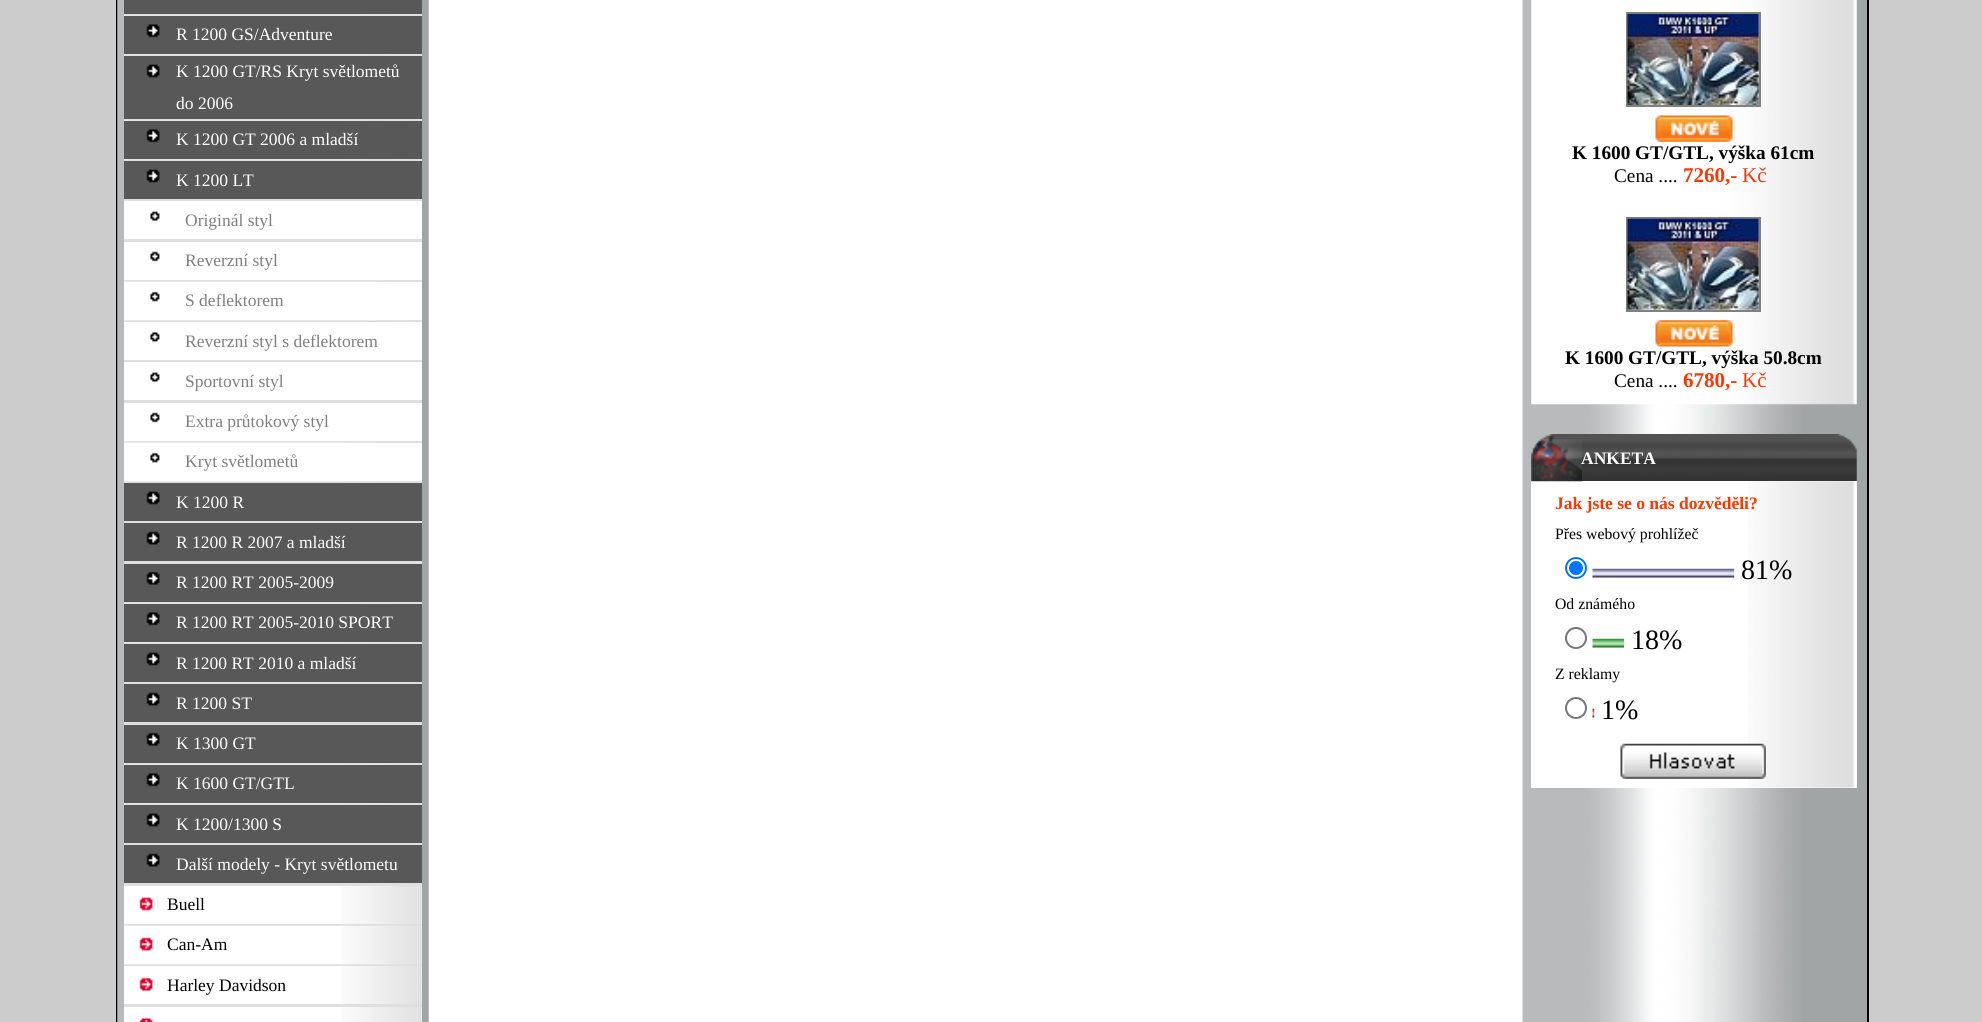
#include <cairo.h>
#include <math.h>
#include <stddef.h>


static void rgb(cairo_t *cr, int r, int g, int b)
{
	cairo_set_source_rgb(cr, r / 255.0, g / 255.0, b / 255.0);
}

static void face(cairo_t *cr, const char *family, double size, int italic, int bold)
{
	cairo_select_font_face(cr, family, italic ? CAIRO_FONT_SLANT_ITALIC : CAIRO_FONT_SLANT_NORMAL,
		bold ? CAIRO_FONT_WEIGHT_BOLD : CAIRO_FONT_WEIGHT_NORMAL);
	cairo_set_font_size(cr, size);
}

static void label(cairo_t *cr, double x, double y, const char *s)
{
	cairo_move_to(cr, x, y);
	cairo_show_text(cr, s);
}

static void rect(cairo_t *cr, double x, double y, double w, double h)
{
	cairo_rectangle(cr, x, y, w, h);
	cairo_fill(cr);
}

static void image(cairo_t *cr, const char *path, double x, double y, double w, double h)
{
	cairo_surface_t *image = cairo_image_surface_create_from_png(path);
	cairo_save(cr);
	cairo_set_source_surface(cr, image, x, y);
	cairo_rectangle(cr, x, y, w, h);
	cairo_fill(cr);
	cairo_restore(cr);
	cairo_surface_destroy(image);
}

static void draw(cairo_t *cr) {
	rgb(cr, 255, 255, 255);
	cairo_paint(cr);
	rgb(cr, 204, 204, 204);
	rect(cr, 0, 0, 116, 1022);
	rgb(cr, 0, 0, 0);
	rect(cr, 116, 0, 2, 1022);
	image(cr, "image0.png", 117, 0, 312, 1022);
	rgb(cr, 255, 255, 255);
	rect(cr, 124, 14, 298, 1008);
	image(cr, "image1.png", 341, 14, 81, 1008);
	rgb(cr, 88, 88, 88);
	rect(cr, 124, 0, 298, 14);
	image(cr, "image2.png", 124, 14, 298, 2);
	rect(cr, 124, 16, 298, 38);
	image(cr, "image3.png", 146, 24, 14, 14);
	face(cr, "Liberation Serif", 17.5, 0, 0);
	rgb(cr, 255, 255, 255);
	label(cr, 176, 40, "R 1200 GS/Adventure");
	image(cr, "image4.png", 124, 54, 298, 2);
	rgb(cr, 88, 88, 88);
	rect(cr, 124, 56, 298, 63);
	image(cr, "image5.png", 146, 64, 14, 14);
	rgb(cr, 255, 255, 255);
	label(cr, 176, 77, "K 1200 GT/RS Kryt světlometů");
	label(cr, 176, 109, "do 2006");
	image(cr, "image6.png", 124, 119, 298, 2);
	rgb(cr, 88, 88, 88);
	rect(cr, 124, 121, 298, 38);
	image(cr, "image3.png", 146, 129, 14, 14);
	rgb(cr, 255, 255, 255);
	label(cr, 176, 145, "K 1200 GT 2006 a mladší");
	image(cr, "image7.png", 124, 159, 298, 2);
	rgb(cr, 88, 88, 88);
	rect(cr, 124, 161, 298, 38);
	image(cr, "image5.png", 146, 169, 14, 14);
	rgb(cr, 255, 255, 255);
	label(cr, 176, 186, "K 1200 LT");
	rgb(cr, 223, 223, 223);
	rect(cr, 124, 199, 298, 2);
	image(cr, "image8.png", 150, 211, 10, 10);
	rgb(cr, 255, 255, 255);
	rect(cr, 341, 201, 81, 38);
	rgb(cr, 128, 128, 128);
	label(cr, 185, 226, "Originál styl");
	rgb(cr, 223, 223, 223);
	rect(cr, 124, 239, 298, 3);
	image(cr, "image9.png", 150, 251, 10, 11);
	rgb(cr, 255, 255, 255);
	rect(cr, 341, 242, 81, 38);
	rgb(cr, 128, 128, 128);
	label(cr, 185, 266, "Reverzní styl");
	image(cr, "image10.png", 124, 280, 298, 2);
	image(cr, "image11.png", 150, 291, 10, 11);
	rgb(cr, 255, 255, 255);
	rect(cr, 341, 282, 81, 38);
	rgb(cr, 128, 128, 128);
	label(cr, 185, 306, "S deflektorem");
	image(cr, "image12.png", 124, 320, 298, 2);
	image(cr, "image13.png", 150, 332, 10, 10);
	rgb(cr, 255, 255, 255);
	rect(cr, 341, 322, 81, 38);
	rgb(cr, 128, 128, 128);
	label(cr, 185, 347, "Reverzní styl s deflektorem");
	rgb(cr, 223, 223, 223);
	rect(cr, 124, 360, 298, 2);
	image(cr, "image8.png", 150, 372, 10, 10);
	rgb(cr, 255, 255, 255);
	rect(cr, 341, 362, 81, 38);
	rgb(cr, 128, 128, 128);
	label(cr, 185, 387, "Sportovní styl");
	rgb(cr, 223, 223, 223);
	rect(cr, 124, 400, 298, 3);
	image(cr, "image9.png", 150, 412, 10, 11);
	rgb(cr, 255, 255, 255);
	rect(cr, 341, 403, 81, 38);
	rgb(cr, 128, 128, 128);
	label(cr, 185, 427, "Extra průtokový styl");
	image(cr, "image14.png", 124, 441, 298, 2);
	image(cr, "image11.png", 150, 452, 10, 11);
	rgb(cr, 255, 255, 255);
	rect(cr, 341, 443, 81, 38);
	rgb(cr, 128, 128, 128);
	label(cr, 185, 467, "Kryt světlometů");
	image(cr, "image15.png", 124, 481, 298, 2);
	rgb(cr, 88, 88, 88);
	rect(cr, 124, 483, 298, 38);
	image(cr, "image5.png", 146, 491, 14, 14);
	rgb(cr, 255, 255, 255);
	label(cr, 176, 508, "K 1200 R");
	rgb(cr, 223, 223, 223);
	rect(cr, 124, 521, 298, 2);
	rgb(cr, 88, 88, 88);
	rect(cr, 124, 523, 298, 38);
	image(cr, "image16.png", 146, 531, 14, 14);
	rgb(cr, 255, 255, 255);
	label(cr, 176, 548, "R 1200 R 2007 a mladší");
	rgb(cr, 223, 223, 223);
	rect(cr, 124, 561, 298, 3);
	rgb(cr, 88, 88, 88);
	rect(cr, 124, 564, 298, 38);
	image(cr, "image17.png", 146, 571, 14, 14);
	rgb(cr, 255, 255, 255);
	label(cr, 176, 588, "R 1200 RT 2005-2009");
	image(cr, "image2.png", 124, 602, 298, 2);
	rgb(cr, 88, 88, 88);
	rect(cr, 124, 604, 298, 38);
	image(cr, "image3.png", 146, 612, 14, 14);
	rgb(cr, 255, 255, 255);
	label(cr, 176, 628, "R 1200 RT 2005-2010 SPORT");
	image(cr, "image4.png", 124, 642, 298, 2);
	rgb(cr, 88, 88, 88);
	rect(cr, 124, 644, 298, 38);
	image(cr, "image5.png", 146, 652, 14, 14);
	rgb(cr, 255, 255, 255);
	label(cr, 176, 669, "R 1200 RT 2010 a mladší");
	rgb(cr, 223, 223, 223);
	rect(cr, 124, 682, 298, 2);
	rgb(cr, 88, 88, 88);
	rect(cr, 124, 684, 298, 38);
	image(cr, "image16.png", 146, 692, 14, 14);
	rgb(cr, 255, 255, 255);
	label(cr, 176, 709, "R 1200 ST");
	rgb(cr, 223, 223, 223);
	rect(cr, 124, 722, 298, 3);
	rgb(cr, 88, 88, 88);
	rect(cr, 124, 725, 298, 38);
	image(cr, "image17.png", 146, 732, 14, 14);
	rgb(cr, 255, 255, 255);
	label(cr, 176, 749, "K 1300 GT");
	image(cr, "image18.png", 124, 763, 298, 2);
	rgb(cr, 88, 88, 88);
	rect(cr, 124, 765, 298, 38);
	image(cr, "image3.png", 146, 773, 14, 14);
	rgb(cr, 255, 255, 255);
	label(cr, 176, 789, "K 1600 GT/GTL");
	image(cr, "image7.png", 124, 803, 298, 2);
	rgb(cr, 88, 88, 88);
	rect(cr, 124, 805, 298, 38);
	image(cr, "image5.png", 146, 813, 14, 14);
	rgb(cr, 255, 255, 255);
	label(cr, 176, 830, "K 1200/1300 S");
	rgb(cr, 223, 223, 223);
	rect(cr, 124, 843, 298, 2);
	rgb(cr, 88, 88, 88);
	rect(cr, 124, 845, 298, 38);
	image(cr, "image16.png", 146, 853, 14, 14);
	rgb(cr, 255, 255, 255);
	label(cr, 176, 870, "Další modely - Kryt světlometu");
	rgb(cr, 223, 223, 223);
	rect(cr, 124, 883, 298, 3);
	image(cr, "image19.png", 139, 897, 14, 14);
	rgb(cr, 0, 0, 0);
	label(cr, 167, 910, "Buell");
	image(cr, "image20.png", 124, 924, 298, 2);
	image(cr, "image21.png", 139, 937, 14, 14);
	label(cr, 167, 950, "Can-Am");
	image(cr, "image12.png", 124, 964, 298, 2);
	image(cr, "image22.png", 139, 977, 14, 14);
	label(cr, 167, 991, "Harley Davidson");
	rgb(cr, 223, 223, 223);
	rect(cr, 124, 1004, 298, 3);
	image(cr, "image23.png", 139, 1018, 14, 4);
	image(cr, "image24.png", 1522, 0, 345, 1022);
	image(cr, "image25.png", 1531, 0, 326, 405);
	cairo_rectangle(cr, 1627, 13, 133, 93);
	rgb(cr, 128, 128, 128);
	cairo_stroke(cr);
	image(cr, "image26.png", 1627, 14, 132, 91);
	image(cr, "image27.png", 1655, 115, 78, 27);
	face(cr, "Liberation Serif", 19.25, 0, 1);
	rgb(cr, 0, 0, 0);
	label(cr, 1572, 159, "K 1600 GT/GTL, výška 61cm");
	face(cr, "Liberation Serif", 19.25, 0, 0);
	label(cr, 1614, 182, "Cena ....");
	face(cr, "Liberation Serif", 21, 0, 1);
	rgb(cr, 255, 54, 0);
	label(cr, 1683, 182, "7260,-");
	face(cr, "Liberation Serif", 21, 0, 0);
	label(cr, 1742, 182, "Kč");
	cairo_rectangle(cr, 1627, 218, 133, 93);
	rgb(cr, 128, 128, 128);
	cairo_stroke(cr);
	image(cr, "image28.png", 1627, 218, 132, 92);
	image(cr, "image29.png", 1655, 320, 78, 27);
	face(cr, "Liberation Serif", 19.25, 0, 1);
	rgb(cr, 0, 0, 0);
	label(cr, 1565, 364, "K 1600 GT/GTL, výška 50.8cm");
	face(cr, "Liberation Serif", 19.25, 0, 0);
	label(cr, 1614, 387, "Cena ....");
	face(cr, "Liberation Serif", 21, 0, 1);
	rgb(cr, 255, 54, 0);
	label(cr, 1683, 387, "6780,-");
	face(cr, "Liberation Serif", 21, 0, 0);
	label(cr, 1742, 387, "Kč");
	rgb(cr, 255, 255, 255);
	rect(cr, 1531, 481, 326, 307);
	image(cr, "image30.png", 1531, 434, 51, 48);
	image(cr, "image31.png", 1582, 434, 196, 47);
	face(cr, "Liberation Serif", 17.5, 0, 1);
	label(cr, 1581, 464, "ANKETA");
	image(cr, "image32.png", 1778, 434, 79, 47);
	image(cr, "image33.png", 1748, 481, 107, 307);
	rgb(cr, 255, 54, 0);
	label(cr, 1555, 509, "Jak jste se o nás dozvěděli?");
	face(cr, "Liberation Serif", 15.75, 0, 0);
	rgb(cr, 0, 0, 0);
	label(cr, 1555, 539, "Přes webový prohlížeč");
	cairo_new_path(cr);
	cairo_arc(cr, 1576, 568, 10, 0, 2 * M_PI);
	rgb(cr, 0, 117, 255);
	cairo_stroke(cr);
	cairo_arc(cr, 1576, 568, 7, 0, 2 * M_PI);
	cairo_fill(cr);
	image(cr, "image34.png", 1592, 568, 143, 10);
	face(cr, "Liberation Serif", 28, 0, 0);
	rgb(cr, 0, 0, 0);
	label(cr, 1741, 579, "81%");
	face(cr, "Liberation Serif", 15.75, 0, 0);
	label(cr, 1555, 609, "Od známého");
	cairo_new_path(cr);
	cairo_arc(cr, 1576, 638, 10, 0, 2 * M_PI);
	rgb(cr, 118, 118, 118);
	cairo_stroke(cr);
	image(cr, "image35.png", 1592, 638, 32, 10);
	face(cr, "Liberation Serif", 28, 0, 0);
	rgb(cr, 0, 0, 0);
	label(cr, 1631, 649, "18%");
	face(cr, "Liberation Serif", 15.75, 0, 0);
	label(cr, 1555, 679, "Z reklamy");
	cairo_new_path(cr);
	cairo_arc(cr, 1576, 708, 10, 0, 2 * M_PI);
	rgb(cr, 118, 118, 118);
	cairo_stroke(cr);
	image(cr, "image36.png", 1592, 708, 3, 10);
	face(cr, "Liberation Serif", 28, 0, 0);
	rgb(cr, 0, 0, 0);
	label(cr, 1601, 719, "1%");
	image(cr, "image37.png", 1620, 743, 146, 36);
	rect(cr, 1867, 0, 2, 1022);
	rgb(cr, 204, 204, 204);
	rect(cr, 1869, 0, 113, 1022);
}

int main(void) {
	cairo_surface_t *surface = cairo_image_surface_create(CAIRO_FORMAT_RGB24, 1982, 1022);
	cairo_t *cr = cairo_create(surface);
	cairo_font_options_t *options = cairo_font_options_create();
	cairo_font_options_set_hint_metrics(options, CAIRO_HINT_METRICS_OFF);
	cairo_font_options_set_hint_style(options, CAIRO_HINT_STYLE_NONE);
	cairo_set_font_options(cr, options);
	cairo_set_miter_limit(cr, 4);
	draw(cr);
	cairo_surface_write_to_png(surface, "render.png");
	cairo_font_options_destroy(options);
	cairo_destroy(cr);
	cairo_surface_destroy(surface);
	return 0;
}
